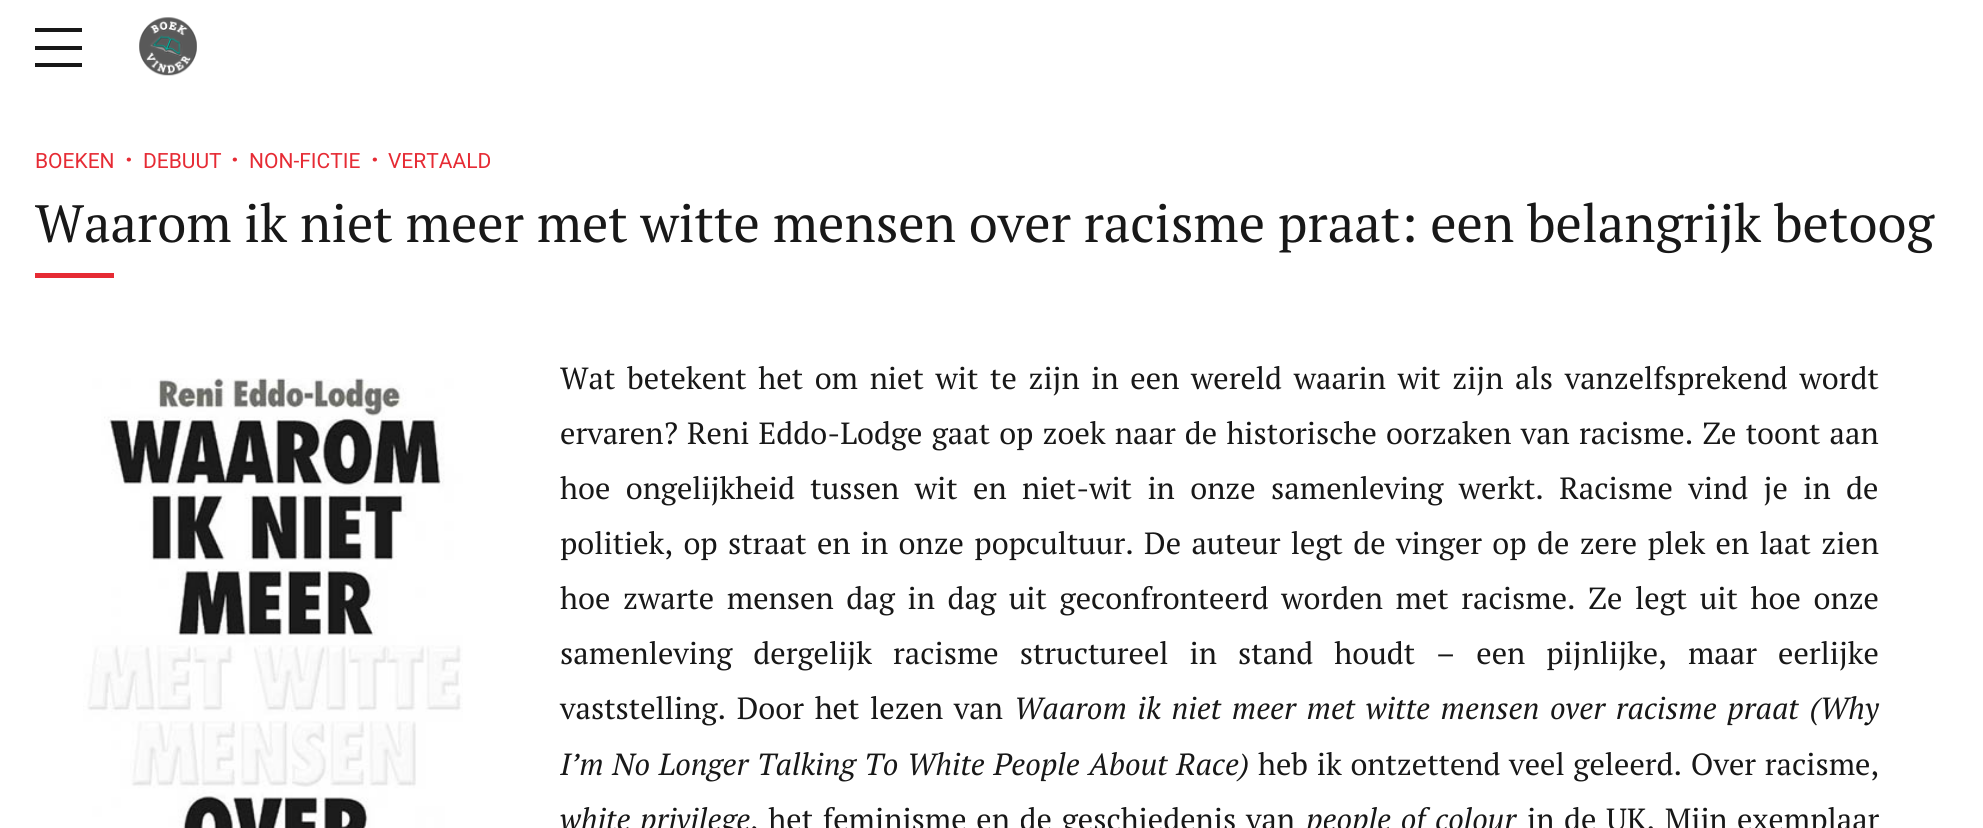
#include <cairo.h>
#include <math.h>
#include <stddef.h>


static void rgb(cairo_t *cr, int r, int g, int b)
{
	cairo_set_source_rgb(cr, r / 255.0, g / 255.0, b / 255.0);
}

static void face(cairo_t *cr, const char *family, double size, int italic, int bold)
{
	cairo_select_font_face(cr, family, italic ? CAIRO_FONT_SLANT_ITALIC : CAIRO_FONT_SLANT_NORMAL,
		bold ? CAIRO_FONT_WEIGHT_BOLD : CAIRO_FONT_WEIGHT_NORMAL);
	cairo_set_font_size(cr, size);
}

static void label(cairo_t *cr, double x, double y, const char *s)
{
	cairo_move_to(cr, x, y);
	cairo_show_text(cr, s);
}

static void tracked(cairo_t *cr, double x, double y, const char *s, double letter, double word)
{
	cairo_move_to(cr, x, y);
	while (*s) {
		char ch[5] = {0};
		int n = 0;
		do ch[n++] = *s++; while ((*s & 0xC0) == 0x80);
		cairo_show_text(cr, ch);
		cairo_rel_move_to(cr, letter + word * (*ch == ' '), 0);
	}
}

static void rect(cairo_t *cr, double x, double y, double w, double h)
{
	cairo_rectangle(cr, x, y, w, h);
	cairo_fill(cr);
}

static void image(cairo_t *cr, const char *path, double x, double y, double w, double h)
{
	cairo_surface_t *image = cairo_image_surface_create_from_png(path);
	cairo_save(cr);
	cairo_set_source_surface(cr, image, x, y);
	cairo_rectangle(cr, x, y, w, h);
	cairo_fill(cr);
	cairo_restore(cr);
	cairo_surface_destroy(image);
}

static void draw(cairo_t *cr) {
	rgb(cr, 255, 255, 255);
	cairo_paint(cr);
	rgb(cr, 24, 24, 24);
	rect(cr, 35, 28, 47, 4);
	rect(cr, 35, 46, 47, 4);
	rect(cr, 35, 63, 47, 4);
	image(cr, "image0.png", 139, 17, 58, 59);
	face(cr, "Roboto", 21, 0, 0);
	rgb(cr, 230, 43, 52);
	label(cr, 35, 168, "BOEKEN");
	face(cr, "Roboto ExtraBold", 25, 0, 0);
	label(cr, 125, 168, "·");
	face(cr, "Roboto", 21, 0, 0);
	label(cr, 143, 168, "DEBUUT");
	face(cr, "Roboto ExtraBold", 25, 0, 0);
	label(cr, 231, 168, "·");
	face(cr, "Roboto", 21, 0, 0);
	label(cr, 249, 168, "NON-FICTIE");
	face(cr, "Roboto ExtraBold", 25, 0, 0);
	label(cr, 371, 168, "·");
	face(cr, "Roboto", 21, 0, 0);
	label(cr, 388, 168, "VERTAALD");
	face(cr, "PT Serif", 52.5, 0, 0);
	rgb(cr, 24, 24, 24);
	label(cr, 35, 242, "Waarom ik niet meer met witte mensen over racisme praat: een belangrijk betoog");
	rgb(cr, 230, 43, 52);
	rect(cr, 35, 273, 79, 5);
	image(cr, "image1.png", 83, 378, 380, 450);
	face(cr, "PT Serif", 30.6, 0, 0);
	rgb(cr, 24, 24, 24);
	tracked(cr, 560, 389, "Wat betekent het om niet wit te zijn in een wereld waarin wit zijn als vanzelfsprekend wordt", 0, 4.25);
	tracked(cr, 560, 444, "ervaren? Reni Eddo-Lodge gaat op zoek naar de historische oorzaken van racisme. Ze toont aan", 0, 1.75);
	tracked(cr, 560, 499, "hoe ongelijkheid tussen wit en niet-wit in onze samenleving werkt. Racisme vind je in de", 0, 8);
	tracked(cr, 560, 554, "politiek, op straat en in onze popcultuur. De auteur legt de vinger op de zere plek en laat zien", 0, 2.9);
	tracked(cr, 560, 609, "hoe zwarte mensen dag in dag uit geconfronteerd worden met racisme. Ze legt uit hoe onze", 0, 5.25);
	tracked(cr, 560, 664, "samenleving dergelijk racisme structureel in stand houdt – een pijnlijke, maar eerlijke", 0, 13.6);
	tracked(cr, 560, 719, "vaststelling. Door het lezen van", 0, 3.25);
	face(cr, "PT Serif", 30.6, 1, 0);
	tracked(cr, 1014, 719, "Waarom ik niet meer met witte mensen over racisme praat (Why", 0, 3.25);
	tracked(cr, 560, 775, "I’m No Longer Talking To White People About Race)", 0, 1.25);
	face(cr, "PT Serif", 30.6, 0, 0);
	tracked(cr, 1258, 775, "heb ik ontzettend veel geleerd. Over racisme,", 0, 1.25);
	face(cr, "PT Serif", 30.6, 1, 0);
	tracked(cr, 560, 830, "white privilege", 0, 2.25);
	face(cr, "PT Serif", 30.6, 0, 0);
	tracked(cr, 750, 830, ", het feminisme en de geschiedenis van", 0, 2.25);
	face(cr, "PT Serif", 30.6, 1, 0);
	tracked(cr, 1306, 830, "people of colour", 0, 2.25);
	face(cr, "PT Serif", 30.6, 0, 0);
	tracked(cr, 1527, 830, "in de UK. Mijn exemplaar", 0, 2.25);
}

int main(void) {
	cairo_surface_t *surface = cairo_image_surface_create(CAIRO_FORMAT_RGB24, 1983, 828);
	cairo_t *cr = cairo_create(surface);
	cairo_font_options_t *options = cairo_font_options_create();
	cairo_font_options_set_hint_metrics(options, CAIRO_HINT_METRICS_OFF);
	cairo_font_options_set_hint_style(options, CAIRO_HINT_STYLE_NONE);
	cairo_set_font_options(cr, options);
	cairo_set_miter_limit(cr, 4);
	draw(cr);
	cairo_surface_write_to_png(surface, "render.png");
	cairo_font_options_destroy(options);
	cairo_destroy(cr);
	cairo_surface_destroy(surface);
	return 0;
}
